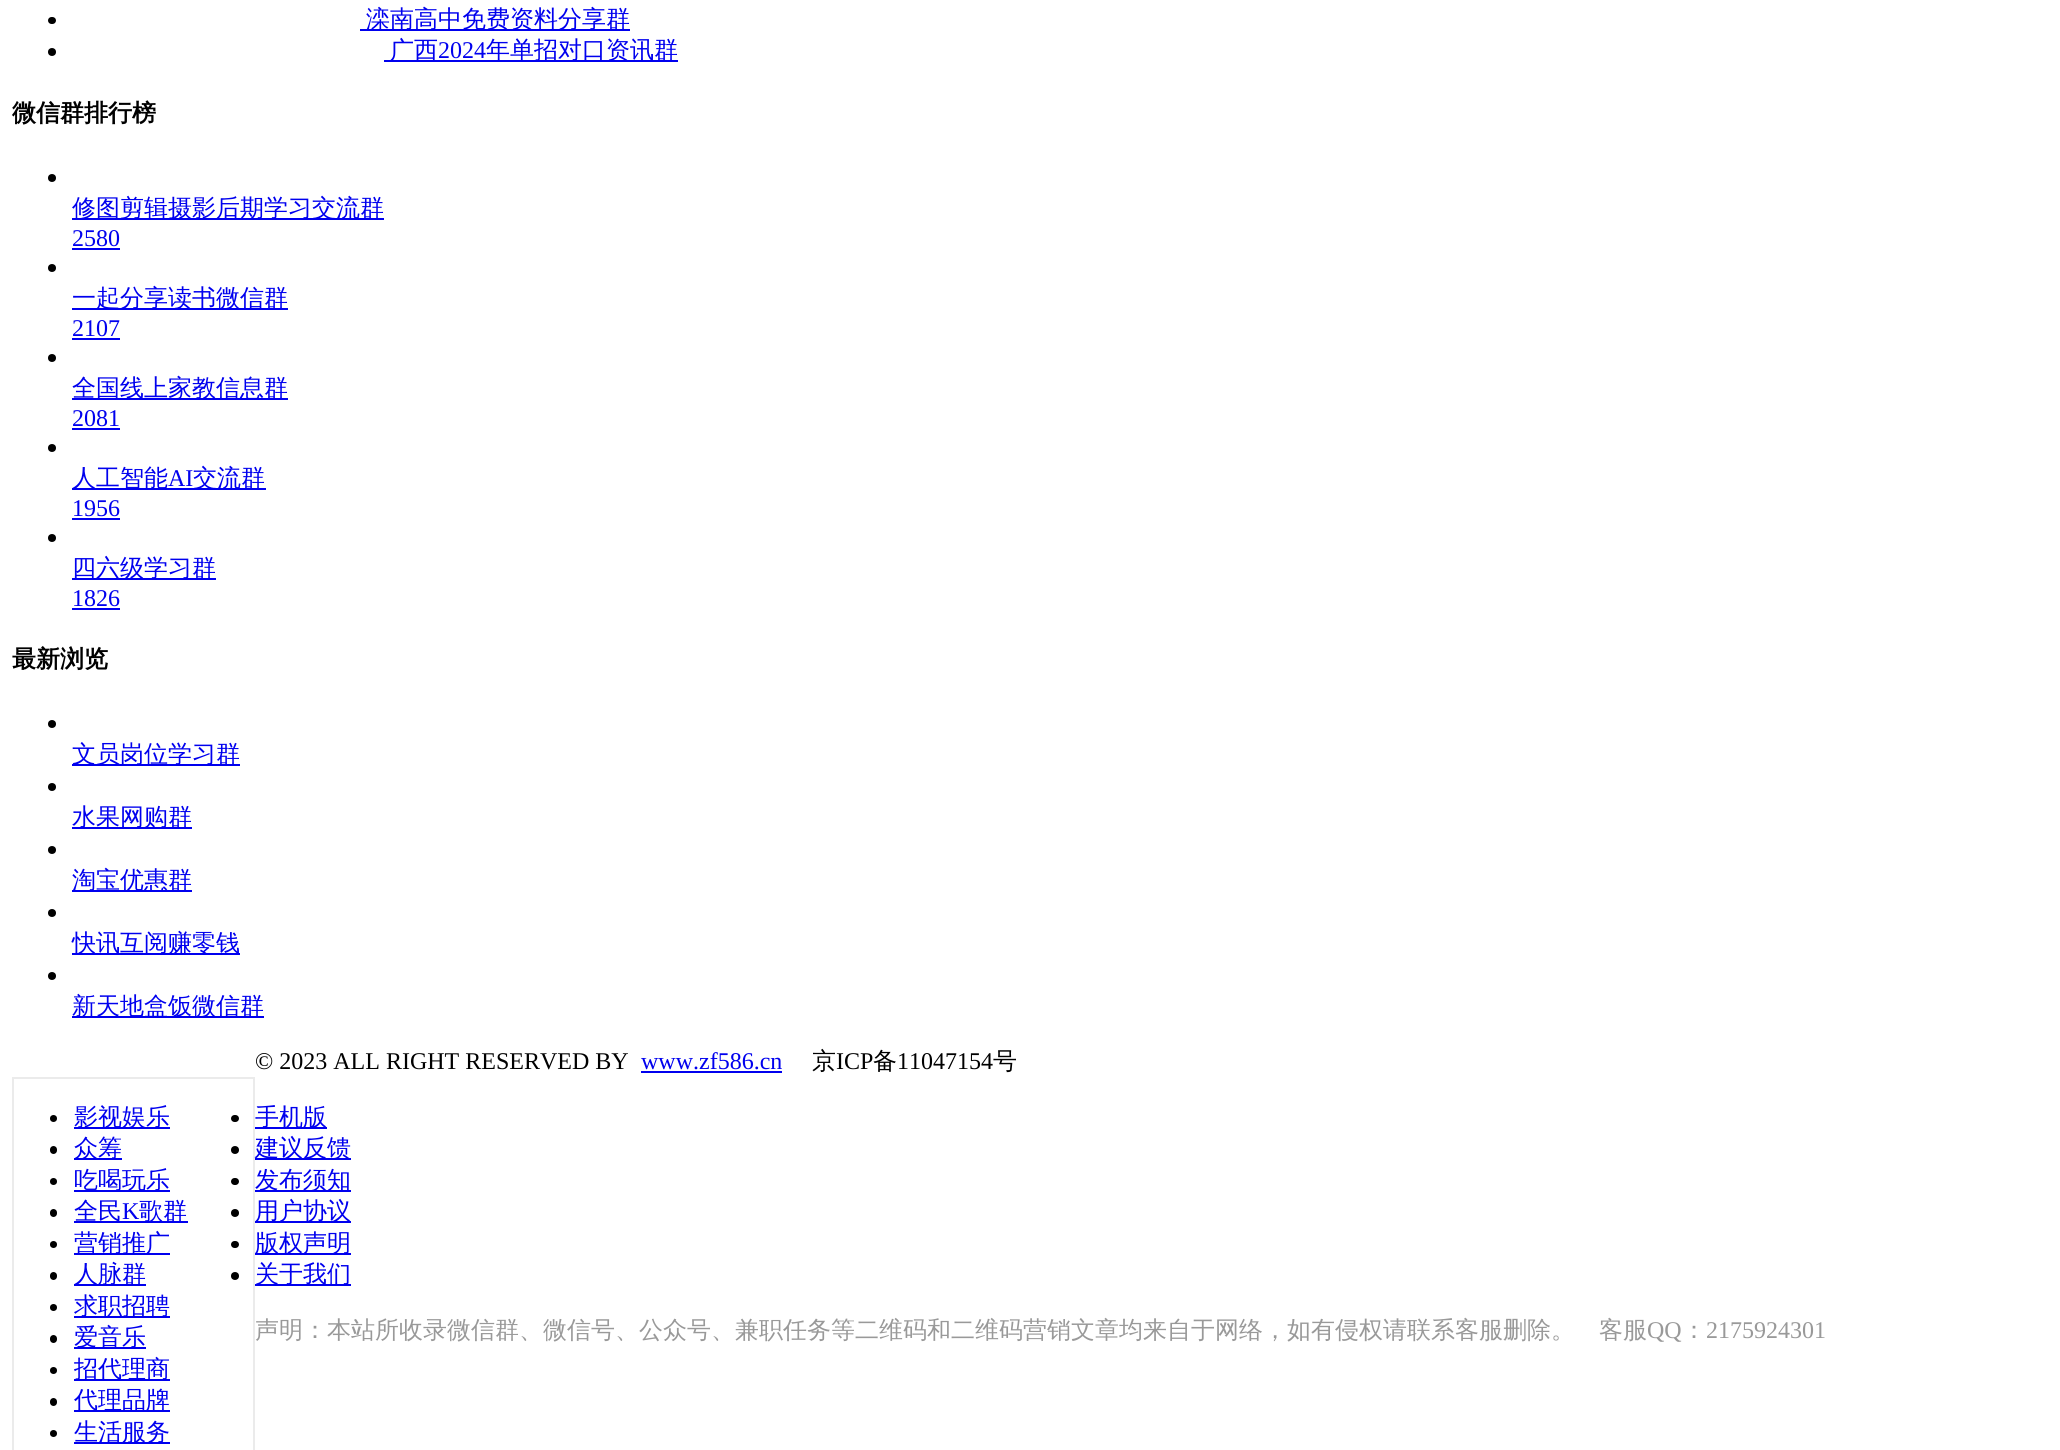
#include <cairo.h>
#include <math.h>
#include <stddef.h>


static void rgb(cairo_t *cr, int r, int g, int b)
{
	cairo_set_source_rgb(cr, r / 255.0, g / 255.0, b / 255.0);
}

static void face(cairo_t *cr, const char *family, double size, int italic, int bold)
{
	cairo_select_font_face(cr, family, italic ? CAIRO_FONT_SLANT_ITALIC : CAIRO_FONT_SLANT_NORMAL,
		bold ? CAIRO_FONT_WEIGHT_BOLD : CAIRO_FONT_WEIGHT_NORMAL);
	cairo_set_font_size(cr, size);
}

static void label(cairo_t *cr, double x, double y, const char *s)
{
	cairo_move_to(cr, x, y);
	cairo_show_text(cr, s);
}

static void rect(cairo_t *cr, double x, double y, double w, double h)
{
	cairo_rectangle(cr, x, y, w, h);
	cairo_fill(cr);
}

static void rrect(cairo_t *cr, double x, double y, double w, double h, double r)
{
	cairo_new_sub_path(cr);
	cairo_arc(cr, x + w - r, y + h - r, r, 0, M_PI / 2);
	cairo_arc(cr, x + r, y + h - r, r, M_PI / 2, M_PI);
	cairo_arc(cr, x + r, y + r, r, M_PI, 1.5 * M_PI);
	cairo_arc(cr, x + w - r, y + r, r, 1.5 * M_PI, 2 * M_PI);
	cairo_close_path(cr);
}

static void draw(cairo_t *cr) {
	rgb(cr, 255, 255, 255);
	cairo_paint(cr);
	rgb(cr, 0, 0, 0);
	rrect(cr, 48, 17, 8, 7, 3.5);
	cairo_fill(cr);
	rgb(cr, 0, 0, 238);
	rect(cr, 360, 29, 270, 2);
	face(cr, "WenQuanYi Zen Hei Medium", 24, 0, 0);
	label(cr, 366, 27, "滦南高中免费资料分享群");
	rgb(cr, 0, 0, 0);
	cairo_new_path(cr);
	cairo_arc(cr, 52, 52, 4, 0, 2 * M_PI);
	cairo_fill(cr);
	rgb(cr, 0, 0, 238);
	rect(cr, 384, 60, 294, 2);
	label(cr, 390, 58, "广西");
	face(cr, "Liberation Serif", 24, 0, 0);
	label(cr, 438, 58, "2024");
	face(cr, "WenQuanYi Zen Hei Medium", 24, 0, 0);
	label(cr, 486, 58, "年单招对口资讯群");
	face(cr, "WenQuanYi Zen Hei", 24, 0, 1);
	rgb(cr, 0, 0, 0);
	label(cr, 12, 121, "微信群排行榜");
	cairo_new_path(cr);
	cairo_arc(cr, 52, 178, 4, 0, 2 * M_PI);
	cairo_fill(cr);
	rgb(cr, 0, 0, 238);
	rect(cr, 72, 218, 312, 2);
	face(cr, "WenQuanYi Zen Hei Medium", 24, 0, 0);
	label(cr, 72, 216, "修图剪辑摄影后期学习交流群");
	face(cr, "Liberation Serif", 24, 0, 0);
	label(cr, 72, 246, "2580");
	rect(cr, 72, 248, 48, 2);
	rgb(cr, 0, 0, 0);
	cairo_new_path(cr);
	cairo_arc(cr, 52, 268, 4, 0, 2 * M_PI);
	cairo_fill(cr);
	rgb(cr, 0, 0, 238);
	rect(cr, 72, 308, 216, 2);
	face(cr, "WenQuanYi Zen Hei Medium", 24, 0, 0);
	label(cr, 72, 306, "一起分享读书微信群");
	face(cr, "Liberation Serif", 24, 0, 0);
	label(cr, 72, 336, "2107");
	rect(cr, 72, 338, 48, 2);
	rgb(cr, 0, 0, 0);
	cairo_new_path(cr);
	cairo_arc(cr, 52, 358, 4, 0, 2 * M_PI);
	cairo_fill(cr);
	rgb(cr, 0, 0, 238);
	rect(cr, 72, 398, 216, 2);
	face(cr, "WenQuanYi Zen Hei Medium", 24, 0, 0);
	label(cr, 72, 396, "全国线上家教信息群");
	face(cr, "Liberation Serif", 24, 0, 0);
	label(cr, 72, 426, "2081");
	rect(cr, 72, 428, 48, 2);
	rgb(cr, 0, 0, 0);
	cairo_new_path(cr);
	cairo_arc(cr, 52, 448, 4, 0, 2 * M_PI);
	cairo_fill(cr);
	rgb(cr, 0, 0, 238);
	rect(cr, 72, 488, 194, 2);
	face(cr, "WenQuanYi Zen Hei Medium", 24, 0, 0);
	label(cr, 72, 486, "人工智能");
	face(cr, "Liberation Serif", 24, 0, 0);
	label(cr, 168, 486, "AI");
	face(cr, "WenQuanYi Zen Hei Medium", 24, 0, 0);
	label(cr, 193, 486, "交流群");
	face(cr, "Liberation Serif", 24, 0, 0);
	label(cr, 72, 516, "1956");
	rect(cr, 72, 518, 48, 2);
	rgb(cr, 0, 0, 0);
	cairo_new_path(cr);
	cairo_arc(cr, 52, 538, 4, 0, 2 * M_PI);
	cairo_fill(cr);
	rgb(cr, 0, 0, 238);
	rect(cr, 72, 578, 144, 2);
	face(cr, "WenQuanYi Zen Hei Medium", 24, 0, 0);
	label(cr, 72, 576, "四六级学习群");
	face(cr, "Liberation Serif", 24, 0, 0);
	label(cr, 72, 606, "1826");
	rect(cr, 72, 608, 48, 2);
	face(cr, "WenQuanYi Zen Hei", 24, 0, 1);
	rgb(cr, 0, 0, 0);
	label(cr, 12, 667, "最新浏览");
	cairo_new_path(cr);
	cairo_arc(cr, 52, 724, 4, 0, 2 * M_PI);
	cairo_fill(cr);
	rgb(cr, 0, 0, 238);
	rect(cr, 72, 764, 168, 2);
	face(cr, "WenQuanYi Zen Hei Medium", 24, 0, 0);
	label(cr, 72, 762, "文员岗位学习群");
	rgb(cr, 0, 0, 0);
	cairo_new_path(cr);
	cairo_arc(cr, 52, 787, 4, 0, 2 * M_PI);
	cairo_fill(cr);
	rgb(cr, 0, 0, 238);
	rect(cr, 72, 827, 120, 2);
	label(cr, 72, 825, "水果网购群");
	rgb(cr, 0, 0, 0);
	cairo_new_path(cr);
	cairo_arc(cr, 52, 850, 4, 0, 2 * M_PI);
	cairo_fill(cr);
	rgb(cr, 0, 0, 238);
	rect(cr, 72, 890, 120, 2);
	label(cr, 72, 888, "淘宝优惠群");
	rgb(cr, 0, 0, 0);
	cairo_new_path(cr);
	cairo_arc(cr, 52, 913, 4, 0, 2 * M_PI);
	cairo_fill(cr);
	rgb(cr, 0, 0, 238);
	rect(cr, 72, 953, 168, 2);
	label(cr, 72, 951, "快讯互阅赚零钱");
	rgb(cr, 0, 0, 0);
	cairo_new_path(cr);
	cairo_arc(cr, 52, 976, 4, 0, 2 * M_PI);
	cairo_fill(cr);
	rgb(cr, 0, 0, 238);
	rect(cr, 72, 1016, 192, 2);
	label(cr, 72, 1014, "新天地盒饭微信群");
	cairo_rectangle(cr, 13, 1078, 241, 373);
	rgb(cr, 235, 235, 235);
	cairo_stroke(cr);
	rgb(cr, 0, 0, 0);
	cairo_arc(cr, 53.5, 1118.5, 3.5, 0, 2 * M_PI);
	cairo_fill(cr);
	rgb(cr, 0, 0, 238);
	rect(cr, 74, 1127, 96, 2);
	label(cr, 74, 1125, "影视娱乐");
	rgb(cr, 0, 0, 0);
	rrect(cr, 50, 1146, 7, 8, 3.5);
	cairo_fill(cr);
	rgb(cr, 0, 0, 238);
	rect(cr, 74, 1158, 48, 2);
	label(cr, 74, 1156, "众筹");
	rgb(cr, 0, 0, 0);
	cairo_new_path(cr);
	cairo_arc(cr, 53.5, 1181.5, 3.5, 0, 2 * M_PI);
	cairo_fill(cr);
	rgb(cr, 0, 0, 238);
	rect(cr, 74, 1190, 96, 2);
	label(cr, 74, 1188, "吃喝玩乐");
	rgb(cr, 0, 0, 0);
	rrect(cr, 50, 1209, 7, 8, 3.5);
	cairo_fill(cr);
	rgb(cr, 0, 0, 238);
	rect(cr, 74, 1221, 114, 2);
	label(cr, 74, 1219, "全民");
	face(cr, "Liberation Serif", 24, 0, 0);
	label(cr, 122, 1219, "K");
	face(cr, "WenQuanYi Zen Hei Medium", 24, 0, 0);
	label(cr, 139, 1219, "歌群");
	rgb(cr, 0, 0, 0);
	cairo_new_path(cr);
	cairo_arc(cr, 53.5, 1244.5, 3.5, 0, 2 * M_PI);
	cairo_fill(cr);
	rgb(cr, 0, 0, 238);
	rect(cr, 74, 1253, 96, 2);
	label(cr, 74, 1251, "营销推广");
	rgb(cr, 0, 0, 0);
	rrect(cr, 50, 1272, 7, 8, 3.5);
	cairo_fill(cr);
	rgb(cr, 0, 0, 238);
	rect(cr, 74, 1284, 72, 2);
	label(cr, 74, 1282, "人脉群");
	rgb(cr, 0, 0, 0);
	cairo_new_path(cr);
	cairo_arc(cr, 53.5, 1307.5, 3.5, 0, 2 * M_PI);
	cairo_fill(cr);
	rgb(cr, 0, 0, 238);
	rect(cr, 74, 1316, 96, 2);
	label(cr, 74, 1314, "求职招聘");
	rgb(cr, 0, 0, 0);
	rrect(cr, 50, 1335, 7, 8, 3.5);
	cairo_fill(cr);
	rgb(cr, 0, 0, 238);
	rect(cr, 74, 1347, 72, 2);
	label(cr, 74, 1345, "爱音乐");
	rgb(cr, 0, 0, 0);
	cairo_new_path(cr);
	cairo_arc(cr, 53.5, 1370.5, 3.5, 0, 2 * M_PI);
	cairo_fill(cr);
	rgb(cr, 0, 0, 238);
	rect(cr, 74, 1379, 96, 2);
	label(cr, 74, 1377, "招代理商");
	rgb(cr, 0, 0, 0);
	rrect(cr, 50, 1398, 7, 8, 3.5);
	cairo_fill(cr);
	rgb(cr, 0, 0, 238);
	rect(cr, 74, 1410, 96, 2);
	label(cr, 74, 1408, "代理品牌");
	rgb(cr, 0, 0, 0);
	cairo_new_path(cr);
	cairo_arc(cr, 53.5, 1433.5, 3.5, 0, 2 * M_PI);
	cairo_fill(cr);
	rgb(cr, 0, 0, 238);
	rect(cr, 74, 1442, 96, 2);
	label(cr, 74, 1440, "生活服务");
	face(cr, "Liberation Serif", 24, 0, 0);
	rgb(cr, 0, 0, 0);
	label(cr, 255, 1069, "© 2023 ALL RIGHT RESERVED BY");
	rgb(cr, 0, 0, 238);
	label(cr, 641, 1069, "www.zf586.cn");
	rect(cr, 641, 1071, 141, 2);
	face(cr, "WenQuanYi Zen Hei Medium", 24, 0, 0);
	rgb(cr, 0, 0, 0);
	label(cr, 812, 1069, "京");
	face(cr, "Liberation Serif", 24, 0, 0);
	label(cr, 836, 1069, "ICP");
	face(cr, "WenQuanYi Zen Hei Medium", 24, 0, 0);
	label(cr, 873, 1069, "备");
	face(cr, "Liberation Serif", 24, 0, 0);
	label(cr, 897, 1069, "11047154");
	face(cr, "WenQuanYi Zen Hei Medium", 24, 0, 0);
	label(cr, 993, 1069, "号");
	rrect(cr, 231, 1115, 8, 7, 3.5);
	cairo_fill(cr);
	rgb(cr, 0, 0, 238);
	rect(cr, 255, 1127, 72, 2);
	label(cr, 255, 1125, "手机版");
	rgb(cr, 0, 0, 0);
	cairo_new_path(cr);
	cairo_arc(cr, 235, 1150, 4, 0, 2 * M_PI);
	cairo_fill(cr);
	rgb(cr, 0, 0, 238);
	rect(cr, 255, 1158, 96, 2);
	label(cr, 255, 1156, "建议反馈");
	rgb(cr, 0, 0, 0);
	rrect(cr, 231, 1178, 8, 7, 3.5);
	cairo_fill(cr);
	rgb(cr, 0, 0, 238);
	rect(cr, 255, 1190, 96, 2);
	label(cr, 255, 1188, "发布须知");
	rgb(cr, 0, 0, 0);
	cairo_new_path(cr);
	cairo_arc(cr, 235, 1213, 4, 0, 2 * M_PI);
	cairo_fill(cr);
	rgb(cr, 0, 0, 238);
	rect(cr, 255, 1221, 96, 2);
	label(cr, 255, 1219, "用户协议");
	rgb(cr, 0, 0, 0);
	rrect(cr, 231, 1241, 8, 7, 3.5);
	cairo_fill(cr);
	rgb(cr, 0, 0, 238);
	rect(cr, 255, 1253, 96, 2);
	label(cr, 255, 1251, "版权声明");
	rgb(cr, 0, 0, 0);
	cairo_new_path(cr);
	cairo_arc(cr, 235, 1276, 4, 0, 2 * M_PI);
	cairo_fill(cr);
	rgb(cr, 0, 0, 238);
	rect(cr, 255, 1284, 96, 2);
	label(cr, 255, 1282, "关于我们");
	rgb(cr, 153, 153, 153);
	label(cr, 255, 1338, "声明：本站所收录微信群、微信号、公众号、兼职任务等二维码和二维码营销文章均来自于网络，如有侵权请联系客服删除。");
	label(cr, 1599, 1338, "客服");
	face(cr, "Liberation Serif", 24, 0, 0);
	label(cr, 1647, 1338, "QQ");
	face(cr, "WenQuanYi Zen Hei Medium", 24, 0, 0);
	label(cr, 1682, 1338, "：");
	face(cr, "Liberation Serif", 24, 0, 0);
	label(cr, 1706, 1338, "2175924301");
}

int main(void) {
	cairo_surface_t *surface = cairo_image_surface_create(CAIRO_FORMAT_RGB24, 2060, 1450);
	cairo_t *cr = cairo_create(surface);
	cairo_font_options_t *options = cairo_font_options_create();
	cairo_font_options_set_hint_metrics(options, CAIRO_HINT_METRICS_OFF);
	cairo_font_options_set_hint_style(options, CAIRO_HINT_STYLE_NONE);
	cairo_set_font_options(cr, options);
	cairo_set_miter_limit(cr, 4);
	draw(cr);
	cairo_surface_write_to_png(surface, "render.png");
	cairo_font_options_destroy(options);
	cairo_destroy(cr);
	cairo_surface_destroy(surface);
	return 0;
}
